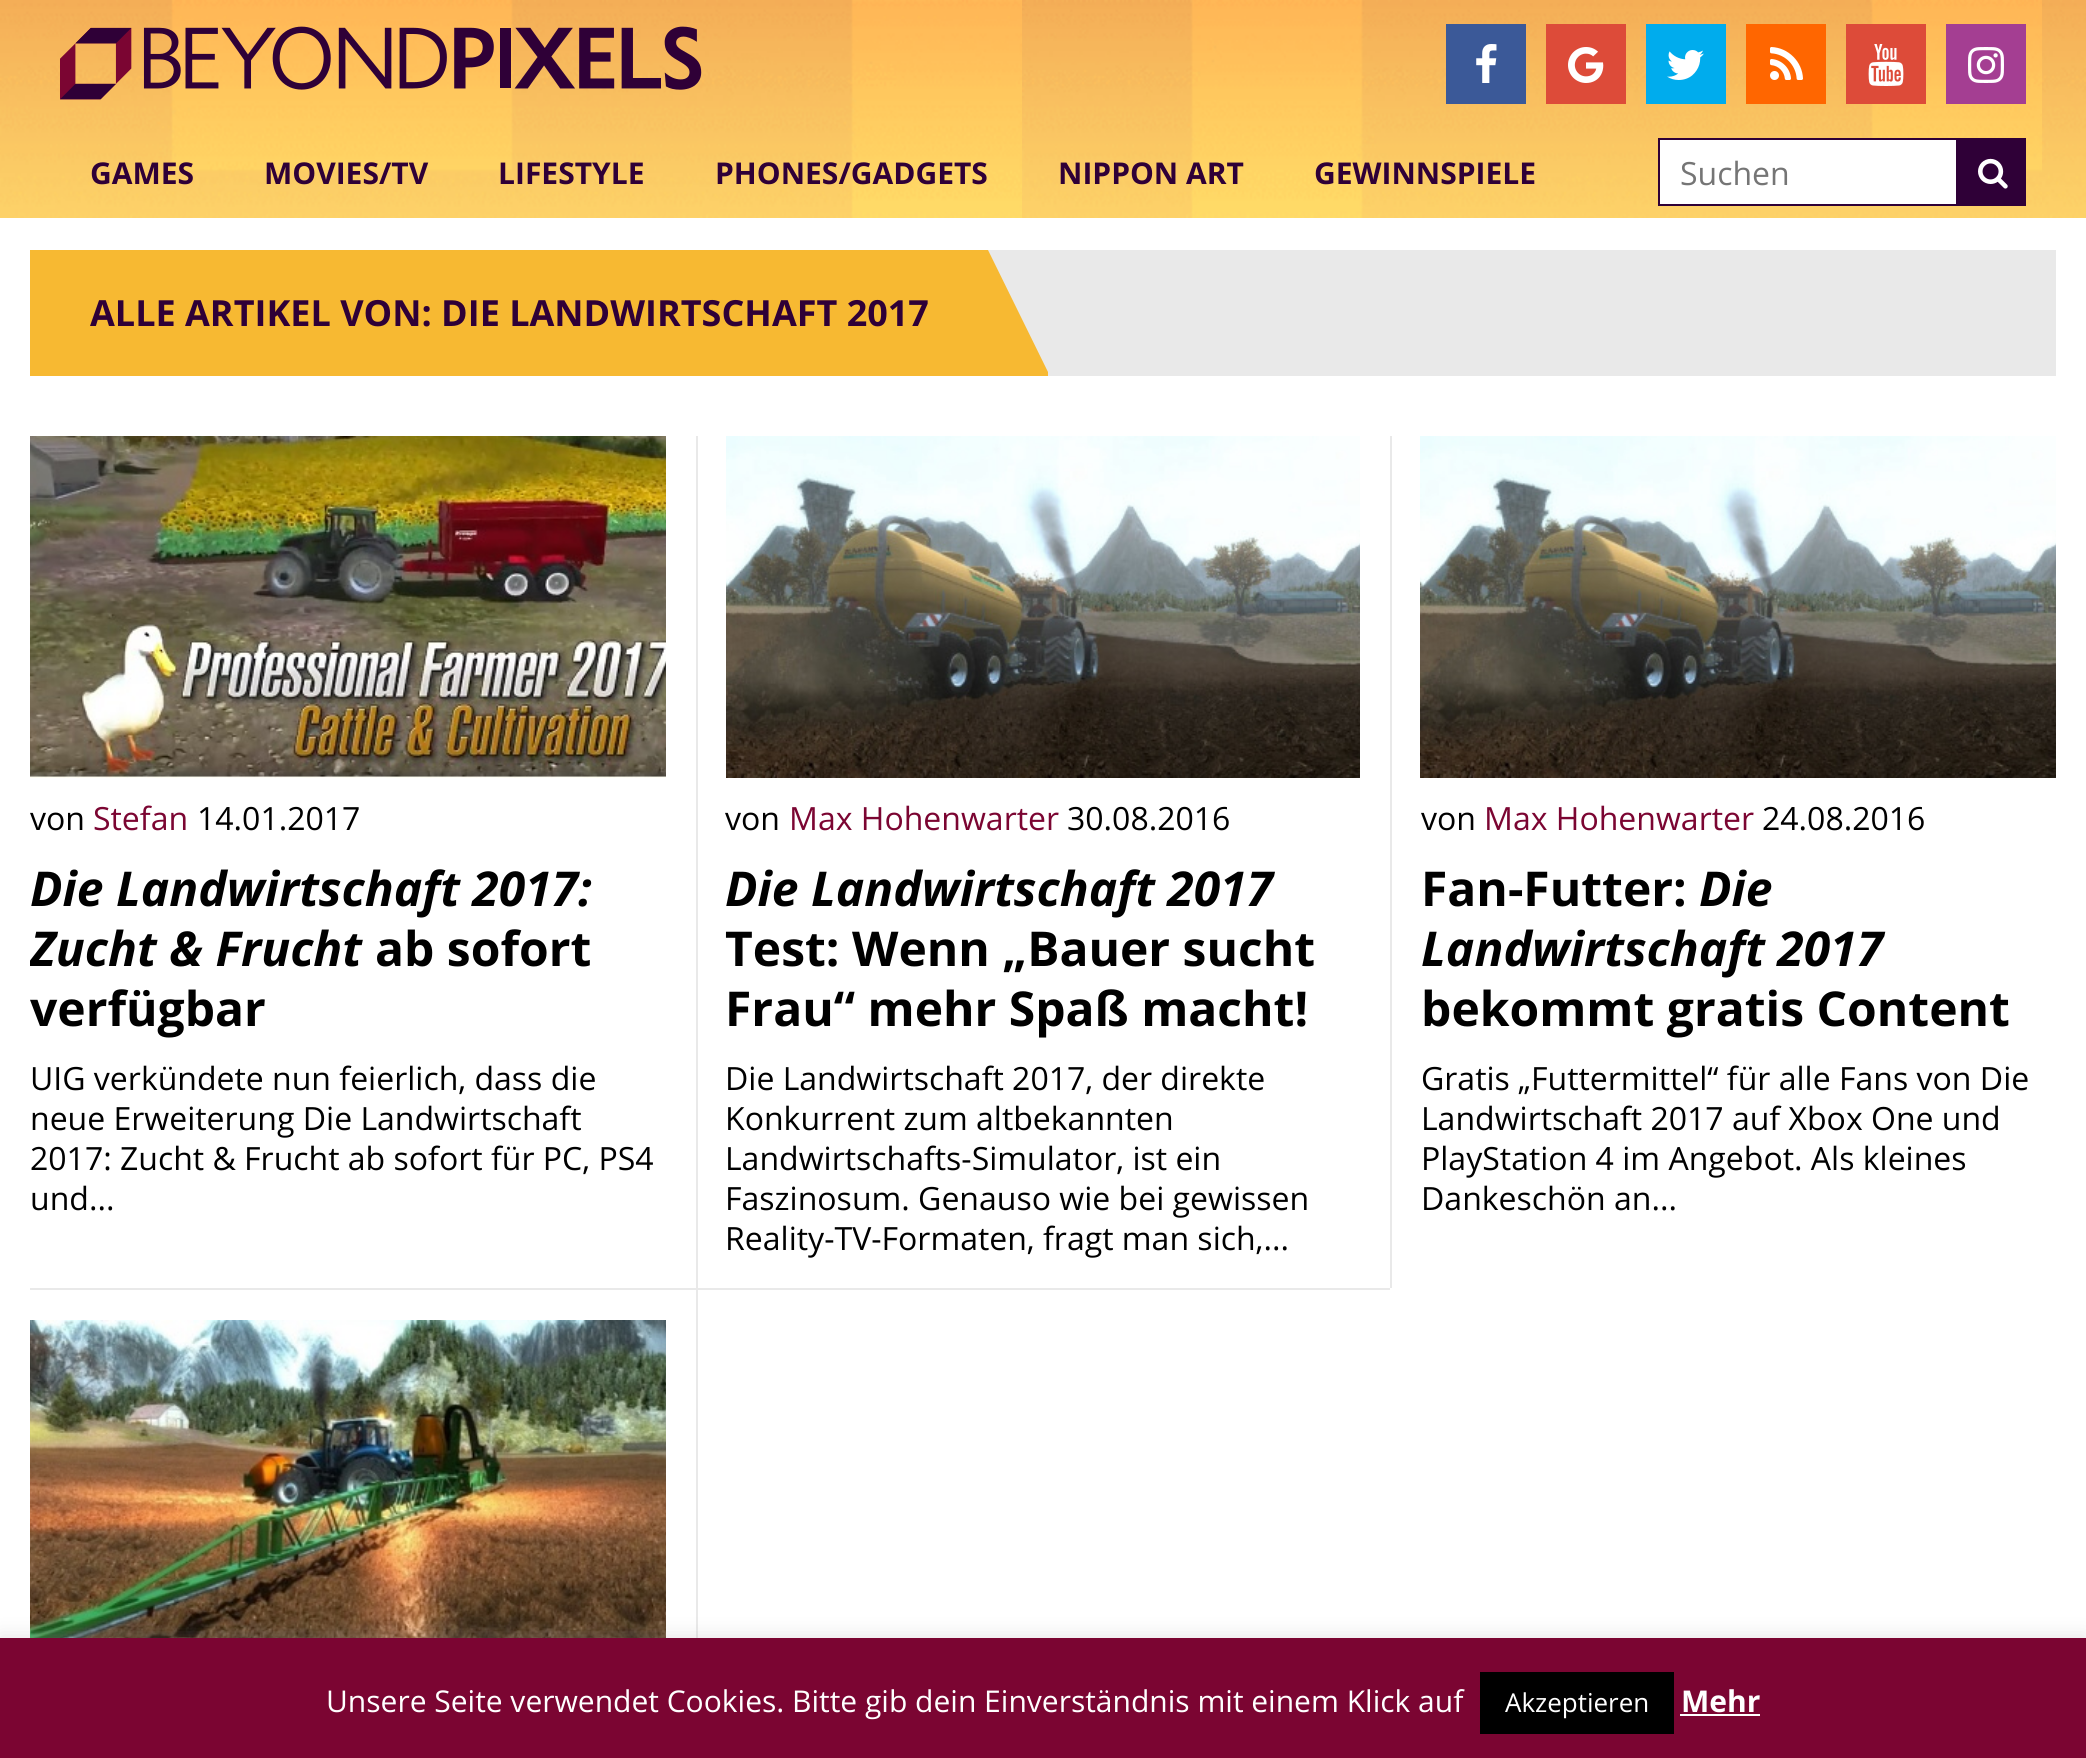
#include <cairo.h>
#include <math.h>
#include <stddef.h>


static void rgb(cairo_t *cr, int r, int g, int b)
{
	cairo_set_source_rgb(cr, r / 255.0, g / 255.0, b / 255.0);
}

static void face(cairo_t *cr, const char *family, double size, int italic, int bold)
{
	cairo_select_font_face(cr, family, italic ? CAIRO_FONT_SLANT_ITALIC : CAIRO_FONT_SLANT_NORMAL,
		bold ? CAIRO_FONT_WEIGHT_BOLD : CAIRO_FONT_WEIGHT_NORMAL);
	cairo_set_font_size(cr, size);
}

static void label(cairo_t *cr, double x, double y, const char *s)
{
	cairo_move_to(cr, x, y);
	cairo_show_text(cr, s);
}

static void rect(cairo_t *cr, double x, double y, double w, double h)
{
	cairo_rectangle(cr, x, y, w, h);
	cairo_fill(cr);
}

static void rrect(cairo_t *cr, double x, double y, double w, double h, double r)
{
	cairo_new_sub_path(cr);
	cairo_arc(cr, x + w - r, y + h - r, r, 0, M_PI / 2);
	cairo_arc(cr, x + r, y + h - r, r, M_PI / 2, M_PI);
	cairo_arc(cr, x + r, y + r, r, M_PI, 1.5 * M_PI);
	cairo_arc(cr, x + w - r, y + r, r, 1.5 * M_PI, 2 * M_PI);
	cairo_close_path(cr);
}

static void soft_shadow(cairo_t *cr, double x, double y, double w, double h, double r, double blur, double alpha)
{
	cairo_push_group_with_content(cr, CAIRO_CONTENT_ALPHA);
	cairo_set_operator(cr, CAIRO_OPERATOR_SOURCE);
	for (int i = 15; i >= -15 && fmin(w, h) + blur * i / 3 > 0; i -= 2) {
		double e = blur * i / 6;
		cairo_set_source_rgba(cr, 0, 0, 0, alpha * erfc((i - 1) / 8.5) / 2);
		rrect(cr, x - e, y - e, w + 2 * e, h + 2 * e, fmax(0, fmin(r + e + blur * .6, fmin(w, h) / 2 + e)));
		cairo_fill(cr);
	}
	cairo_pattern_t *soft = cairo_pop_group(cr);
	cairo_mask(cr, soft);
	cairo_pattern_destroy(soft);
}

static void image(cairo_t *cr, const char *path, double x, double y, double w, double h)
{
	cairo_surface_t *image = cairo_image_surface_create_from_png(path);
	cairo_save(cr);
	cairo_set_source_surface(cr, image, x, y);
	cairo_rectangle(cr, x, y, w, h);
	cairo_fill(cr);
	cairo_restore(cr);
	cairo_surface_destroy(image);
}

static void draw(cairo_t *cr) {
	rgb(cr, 255, 255, 255);
	cairo_paint(cr);
	image(cr, "image0.png", 0, 0, 2086, 218);
	image(cr, "image1.png", 60, 26, 642, 74);
	rgb(cr, 59, 89, 152);
	rect(cr, 1446, 24, 80, 80);
	image(cr, "image2.png", 1476, 44, 21, 39);
	rgb(cr, 221, 75, 57);
	rect(cr, 1546, 24, 80, 80);
	image(cr, "image3.png", 1568, 47, 36, 36);
	rgb(cr, 0, 172, 237);
	rect(cr, 1646, 24, 80, 80);
	image(cr, "image4.png", 1667, 50, 37, 30);
	rgb(cr, 255, 102, 0);
	rect(cr, 1746, 24, 80, 80);
	image(cr, "image5.png", 1770, 47, 33, 33);
	rgb(cr, 221, 75, 57);
	rect(cr, 1846, 24, 80, 80);
	image(cr, "image6.png", 1868, 44, 36, 42);
	rgb(cr, 164, 62, 146);
	rect(cr, 1946, 24, 80, 80);
	image(cr, "image7.png", 1968, 47, 36, 36);
	face(cr, "Open Sans", 30, 0, 1);
	rgb(cr, 47, 0, 55);
	label(cr, 90, 184, "GAMES");
	label(cr, 264, 184, "MOVIES/TV");
	label(cr, 498, 184, "LIFESTYLE");
	label(cr, 715, 184, "PHONES/GADGETS");
	label(cr, 1058, 184, "NIPPON ART");
	label(cr, 1314, 184, "GEWINNSPIELE");
	rgb(cr, 255, 255, 255);
	cairo_rectangle(cr, 1659, 139, 298, 66);
	cairo_fill_preserve(cr);
	rgb(cr, 47, 0, 55);
	cairo_stroke(cr);
	face(cr, "Open Sans", 32, 0, 0);
	rgb(cr, 117, 117, 117);
	label(cr, 1680, 185, "Suchen");
	rgb(cr, 47, 0, 55);
	rect(cr, 1958, 138, 68, 68);
	image(cr, "image8.png", 1978, 158, 30, 31);
	rgb(cr, 233, 233, 233);
	rect(cr, 1048, 250, 1008, 126);
	rgb(cr, 247, 185, 50);
	rect(cr, 30, 250, 1018, 126);
	face(cr, "Open Sans", 36, 0, 1);
	rgb(cr, 47, 0, 55);
	label(cr, 90, 326, "ALLE ARTIKEL VON: DIE LANDWIRTSCHAFT 2017");
	rgb(cr, 233, 233, 233);
	cairo_new_path(cr);
	cairo_move_to(cr, 988, 250);
	cairo_line_to(cr, 1048, 250);
	cairo_line_to(cr, 1048, 372);
	cairo_close_path(cr);
	cairo_fill(cr);
	image(cr, "image9.png", 30, 436, 636, 342);
	face(cr, "Open Sans", 32, 0, 0);
	rgb(cr, 0, 0, 0);
	label(cr, 30, 830, "von");
	rgb(cr, 123, 5, 50);
	label(cr, 93, 830, "Stefan");
	rgb(cr, 0, 0, 0);
	label(cr, 197, 830, "14.01.2017");
	face(cr, "Open Sans", 48, 1, 1);
	label(cr, 30, 906, "Die Landwirtschaft 2017:");
	cairo_save(cr);
	cairo_rectangle(cr, 30, 858, 636, 180);
	cairo_clip(cr);
	label(cr, 30, 966, "Zucht & Frucht");
	cairo_restore(cr);
	face(cr, "Open Sans", 48, 0, 1);
	label(cr, 375, 966, "ab sofort");
	label(cr, 30, 1026, "verfügbar");
	face(cr, "Open Sans", 32, 0, 0);
	label(cr, 30, 1090, "UIG verkündete nun feierlich, dass die");
	label(cr, 30, 1130, "neue Erweiterung Die Landwirtschaft");
	label(cr, 30, 1170, "2017: Zucht & Frucht ab sofort für PC, PS4");
	label(cr, 30, 1210, "und...");
	rgb(cr, 233, 233, 233);
	rect(cr, 696, 436, 2, 852);
	image(cr, "image10.png", 726, 436, 634, 342);
	rgb(cr, 0, 0, 0);
	label(cr, 725, 830, "von");
	rgb(cr, 123, 5, 50);
	label(cr, 789, 830, "Max Hohenwarter");
	rgb(cr, 0, 0, 0);
	label(cr, 1067, 830, "30.08.2016");
	face(cr, "Open Sans", 48, 1, 1);
	label(cr, 725, 906, "Die Landwirtschaft 2017");
	face(cr, "Open Sans", 48, 0, 1);
	label(cr, 725, 966, "Test: Wenn „Bauer sucht");
	label(cr, 725, 1026, "Frau“ mehr Spaß macht!");
	face(cr, "Open Sans", 32, 0, 0);
	label(cr, 725, 1090, "Die Landwirtschaft 2017, der direkte");
	label(cr, 725, 1130, "Konkurrent zum altbekannten");
	label(cr, 725, 1170, "Landwirtschafts-Simulator, ist ein");
	label(cr, 725, 1210, "Faszinosum. Genauso wie bei gewissen");
	label(cr, 725, 1250, "Reality-TV-Formaten, fragt man sich,...");
	rgb(cr, 233, 233, 233);
	rect(cr, 1390, 436, 2, 852);
	image(cr, "image11.png", 1420, 436, 636, 342);
	rgb(cr, 0, 0, 0);
	label(cr, 1421, 830, "von");
	rgb(cr, 123, 5, 50);
	label(cr, 1484, 830, "Max Hohenwarter");
	rgb(cr, 0, 0, 0);
	label(cr, 1762, 830, "24.08.2016");
	face(cr, "Open Sans", 48, 0, 1);
	label(cr, 1421, 906, "Fan-Futter:");
	face(cr, "Open Sans", 48, 1, 1);
	label(cr, 1699, 906, "Die");
	label(cr, 1421, 966, "Landwirtschaft 2017");
	face(cr, "Open Sans", 48, 0, 1);
	label(cr, 1421, 1026, "bekommt gratis Content");
	face(cr, "Open Sans", 32, 0, 0);
	label(cr, 1421, 1090, "Gratis „Futtermittel“ für alle Fans von Die");
	label(cr, 1421, 1130, "Landwirtschaft 2017 auf Xbox One und");
	label(cr, 1421, 1170, "PlayStation 4 im Angebot. Als kleines");
	label(cr, 1421, 1210, "Dankeschön an...");
	rgb(cr, 233, 233, 233);
	rect(cr, 30, 1288, 1360, 2);
	image(cr, "image12.png", 30, 1320, 636, 318);
	rect(cr, 696, 1290, 2, 348);
	rgb(cr, 172, 171, 171);
	soft_shadow(cr, 0, 1636, 2086, 120, 0, 10, 0.3);
	rgb(cr, 123, 5, 50);
	rect(cr, 0, 1638, 2086, 120);
	face(cr, "Open Sans", 30, 0, 0);
	rgb(cr, 255, 255, 255);
	label(cr, 326, 1712, "Unsere Seite verwendet Cookies. Bitte gib dein Einverständnis mit einem Klick auf");
	rgb(cr, 0, 0, 0);
	rect(cr, 1480, 1672, 194, 62);
	face(cr, "Open Sans", 26, 0, 0);
	rgb(cr, 255, 255, 255);
	label(cr, 1505, 1712, "Akzeptieren");
	face(cr, "Open Sans", 30, 0, 1);
	label(cr, 1681, 1712, "Mehr");
	rect(cr, 1680, 1714, 80, 2);
}

int main(void) {
	cairo_surface_t *surface = cairo_image_surface_create(CAIRO_FORMAT_RGB24, 2086, 1758);
	cairo_t *cr = cairo_create(surface);
	cairo_font_options_t *options = cairo_font_options_create();
	cairo_font_options_set_hint_metrics(options, CAIRO_HINT_METRICS_OFF);
	cairo_font_options_set_hint_style(options, CAIRO_HINT_STYLE_NONE);
	cairo_set_font_options(cr, options);
	cairo_set_miter_limit(cr, 4);
	draw(cr);
	cairo_surface_write_to_png(surface, "render.png");
	cairo_font_options_destroy(options);
	cairo_destroy(cr);
	cairo_surface_destroy(surface);
	return 0;
}
